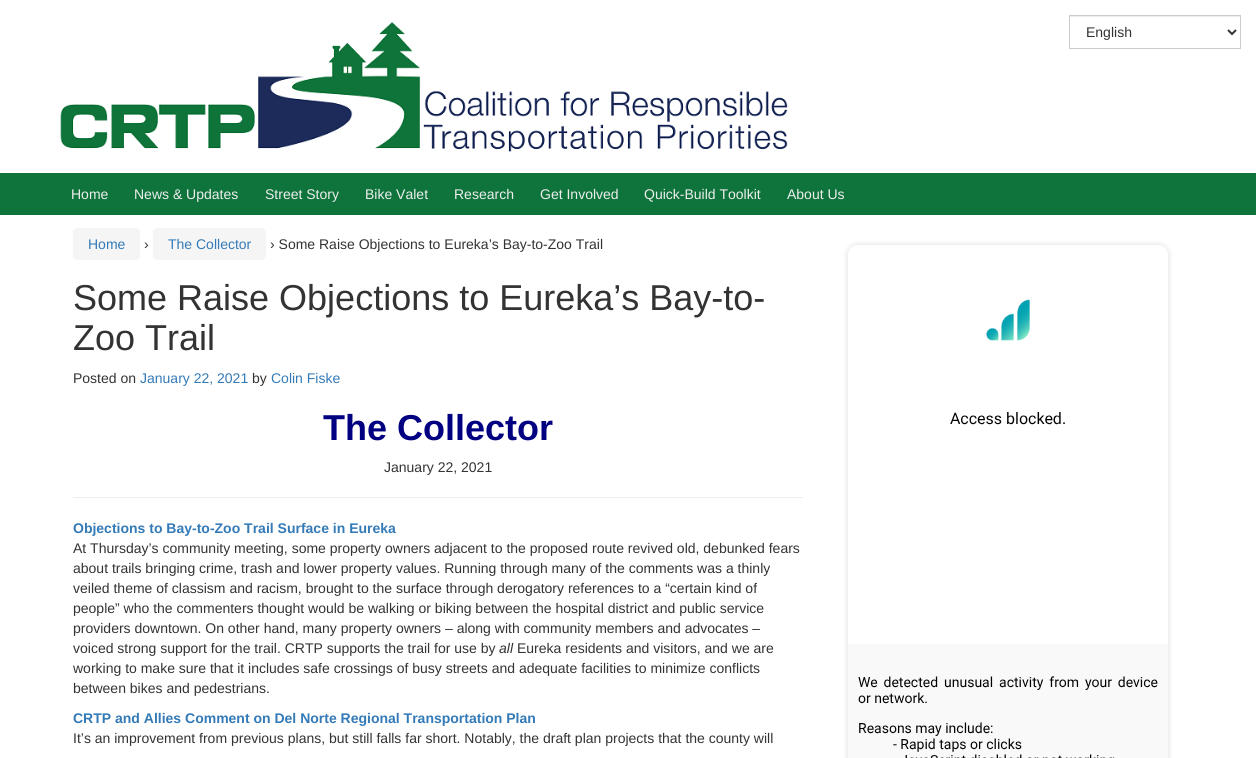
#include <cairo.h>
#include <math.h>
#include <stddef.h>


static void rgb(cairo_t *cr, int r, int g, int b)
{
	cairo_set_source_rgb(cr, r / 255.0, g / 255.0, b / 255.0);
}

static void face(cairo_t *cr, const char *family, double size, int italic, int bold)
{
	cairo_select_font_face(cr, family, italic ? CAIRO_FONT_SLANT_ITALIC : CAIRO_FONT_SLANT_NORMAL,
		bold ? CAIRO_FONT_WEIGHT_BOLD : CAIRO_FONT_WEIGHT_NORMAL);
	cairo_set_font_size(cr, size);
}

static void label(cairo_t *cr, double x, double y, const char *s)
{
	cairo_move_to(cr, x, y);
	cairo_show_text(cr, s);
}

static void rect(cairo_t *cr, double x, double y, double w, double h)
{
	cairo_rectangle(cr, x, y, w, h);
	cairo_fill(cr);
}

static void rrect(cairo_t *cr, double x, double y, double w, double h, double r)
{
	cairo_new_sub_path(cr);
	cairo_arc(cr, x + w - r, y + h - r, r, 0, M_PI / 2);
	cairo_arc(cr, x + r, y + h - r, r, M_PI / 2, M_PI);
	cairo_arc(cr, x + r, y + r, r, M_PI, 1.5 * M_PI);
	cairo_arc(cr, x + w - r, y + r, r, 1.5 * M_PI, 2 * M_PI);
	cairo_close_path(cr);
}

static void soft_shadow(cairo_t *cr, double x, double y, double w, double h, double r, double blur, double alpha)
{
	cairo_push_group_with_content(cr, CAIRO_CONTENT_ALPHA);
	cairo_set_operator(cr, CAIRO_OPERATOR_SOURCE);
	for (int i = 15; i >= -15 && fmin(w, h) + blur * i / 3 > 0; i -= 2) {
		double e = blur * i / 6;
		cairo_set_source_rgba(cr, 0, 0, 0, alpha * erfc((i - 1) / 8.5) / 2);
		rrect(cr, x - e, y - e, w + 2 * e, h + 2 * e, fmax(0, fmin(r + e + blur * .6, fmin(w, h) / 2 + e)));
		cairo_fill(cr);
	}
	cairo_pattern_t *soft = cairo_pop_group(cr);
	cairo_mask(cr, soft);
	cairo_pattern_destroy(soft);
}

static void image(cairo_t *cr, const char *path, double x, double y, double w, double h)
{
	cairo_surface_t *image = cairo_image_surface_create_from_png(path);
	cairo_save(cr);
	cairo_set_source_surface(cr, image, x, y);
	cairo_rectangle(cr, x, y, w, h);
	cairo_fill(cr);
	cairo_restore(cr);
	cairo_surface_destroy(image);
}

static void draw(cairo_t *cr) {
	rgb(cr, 255, 255, 255);
	cairo_paint(cr);
	rgb(cr, 236, 236, 236);
	rect(cr, 1070, 16, 170, 1);
	cairo_rectangle(cr, 1069.5, 15.5, 171, 33);
	rgb(cr, 204, 204, 204);
	cairo_set_line_width(cr, 1);
	cairo_stroke(cr);
	cairo_new_path(cr);
	cairo_move_to(cr, 1228, 30);
	cairo_line_to(cr, 1232, 34);
	cairo_line_to(cr, 1236, 30);
	rgb(cr, 51, 51, 51);
	cairo_set_line_width(cr, 2);
	cairo_stroke(cr);
	face(cr, "Liberation Sans", 14, 0, 0);
	label(cr, 1086, 37, "English");
	image(cr, "image0.png", 60, 22, 728, 130);
	rgb(cr, 15, 116, 60);
	rect(cr, 0, 173, 1256, 42);
	rgb(cr, 238, 238, 238);
	label(cr, 71, 199, "Home");
	label(cr, 134, 199, "News & Updates");
	label(cr, 265, 199, "Street Story");
	label(cr, 365, 199, "Bike Valet");
	label(cr, 454, 199, "Research");
	label(cr, 540, 199, "Get Involved");
	label(cr, 644, 199, "Quick-Build Toolkit");
	label(cr, 787, 199, "About Us");
	rgb(cr, 245, 245, 245);
	rrect(cr, 73, 228, 67, 32, 4);
	cairo_fill(cr);
	rgb(cr, 51, 122, 183);
	label(cr, 88, 249, "Home");
	rgb(cr, 51, 51, 51);
	label(cr, 144, 249, "›");
	rgb(cr, 245, 245, 245);
	rrect(cr, 153, 228, 113, 32, 4);
	cairo_fill(cr);
	rgb(cr, 51, 122, 183);
	label(cr, 168, 249, "The Collector");
	rgb(cr, 51, 51, 51);
	label(cr, 270, 249, "› Some Raise Objections to Eureka’s Bay-to-Zoo Trail");
	face(cr, "Liberation Sans", 36, 0, 0);
	label(cr, 73, 310, "Some Raise Objections to Eureka’s Bay-to-");
	label(cr, 73, 350, "Zoo Trail");
	face(cr, "Liberation Sans", 14, 0, 0);
	label(cr, 73, 383, "Posted on");
	rgb(cr, 51, 122, 183);
	label(cr, 140, 383, "January 22, 2021");
	rgb(cr, 51, 51, 51);
	label(cr, 252, 383, "by");
	rgb(cr, 51, 122, 183);
	label(cr, 271, 383, "Colin Fiske");
	face(cr, "Liberation Sans", 36, 0, 1);
	rgb(cr, 0, 0, 128);
	label(cr, 323, 440, "The Collector");
	face(cr, "Liberation Sans", 14, 0, 0);
	rgb(cr, 51, 51, 51);
	label(cr, 384, 472, "January 22, 2021");
	rgb(cr, 238, 238, 238);
	rect(cr, 73, 497, 730, 1);
	face(cr, "Liberation Sans", 14, 0, 1);
	rgb(cr, 51, 122, 183);
	label(cr, 73, 533, "Objections to Bay-to-Zoo Trail Surface in Eureka");
	face(cr, "Liberation Sans", 14, 0, 0);
	rgb(cr, 51, 51, 51);
	label(cr, 73, 553, "At Thursday’s community meeting, some property owners adjacent to the proposed route revived old, debunked fears");
	label(cr, 73, 573, "about trails bringing crime, trash and lower property values. Running through many of the comments was a thinly");
	label(cr, 73, 593, "veiled theme of classism and racism, brought to the surface through derogatory references to a “certain kind of");
	label(cr, 73, 613, "people” who the commenters thought would be walking or biking between the hospital district and public service");
	label(cr, 73, 633, "providers downtown. On other hand, many property owners – along with community members and advocates –");
	label(cr, 73, 653, "voiced strong support for the trail. CRTP supports the trail for use by");
	face(cr, "Liberation Sans", 14, 1, 0);
	label(cr, 499, 653, "all");
	face(cr, "Liberation Sans", 14, 0, 0);
	label(cr, 517, 653, "Eureka residents and visitors, and we are");
	label(cr, 73, 673, "working to make sure that it includes safe crossings of busy streets and adequate facilities to minimize conflicts");
	label(cr, 73, 693, "between bikes and pedestrians.");
	face(cr, "Liberation Sans", 14, 0, 1);
	rgb(cr, 51, 122, 183);
	label(cr, 73, 723, "CRTP and Allies Comment on Del Norte Regional Transportation Plan");
	face(cr, "Liberation Sans", 14, 0, 0);
	rgb(cr, 51, 51, 51);
	label(cr, 73, 743, "It’s an improvement from previous plans, but still falls far short. Notably, the draft plan projects that the county will");
	cairo_save(cr);
	cairo_set_fill_rule(cr, CAIRO_FILL_RULE_EVEN_ODD);
	cairo_new_path(cr);
	cairo_move_to(cr, 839, 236);
	cairo_line_to(cr, 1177, 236);
	cairo_line_to(cr, 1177, 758);
	cairo_line_to(cr, 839, 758);
	cairo_close_path(cr);
	cairo_move_to(cr, 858, 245);
	cairo_line_to(cr, 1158, 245);
	cairo_curve_to(cr, 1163.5, 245, 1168, 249.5, 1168, 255);
	cairo_line_to(cr, 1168, 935);
	cairo_curve_to(cr, 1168, 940.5, 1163.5, 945, 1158, 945);
	cairo_line_to(cr, 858, 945);
	cairo_curve_to(cr, 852.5, 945, 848, 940.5, 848, 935);
	cairo_line_to(cr, 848, 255);
	cairo_curve_to(cr, 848, 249.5, 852.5, 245, 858, 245);
	cairo_close_path(cr);
	cairo_clip(cr);
	rgb(cr, 216, 216, 216);
	soft_shadow(cr, 846, 243, 324, 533, 12, 2, 0.5);
	cairo_restore(cr);
	image(cr, "image1.png", 848, 299, 320, 459);
}

int main(void) {
	cairo_surface_t *surface = cairo_image_surface_create(CAIRO_FORMAT_RGB24, 1256, 758);
	cairo_t *cr = cairo_create(surface);
	cairo_font_options_t *options = cairo_font_options_create();
	cairo_font_options_set_hint_metrics(options, CAIRO_HINT_METRICS_OFF);
	cairo_font_options_set_hint_style(options, CAIRO_HINT_STYLE_NONE);
	cairo_set_font_options(cr, options);
	cairo_set_miter_limit(cr, 4);
	draw(cr);
	cairo_surface_write_to_png(surface, "render.png");
	cairo_font_options_destroy(options);
	cairo_destroy(cr);
	cairo_surface_destroy(surface);
	return 0;
}
